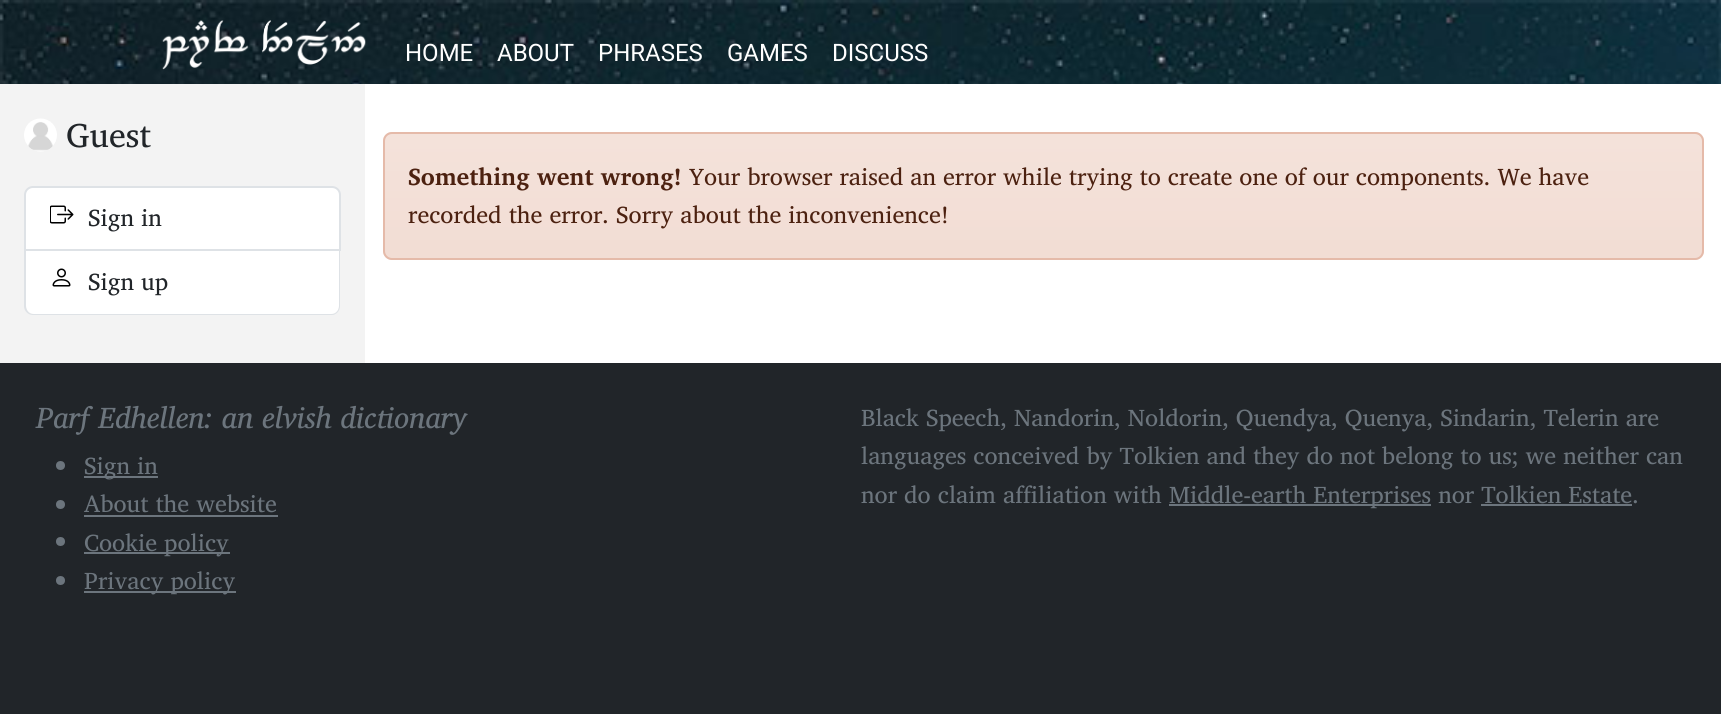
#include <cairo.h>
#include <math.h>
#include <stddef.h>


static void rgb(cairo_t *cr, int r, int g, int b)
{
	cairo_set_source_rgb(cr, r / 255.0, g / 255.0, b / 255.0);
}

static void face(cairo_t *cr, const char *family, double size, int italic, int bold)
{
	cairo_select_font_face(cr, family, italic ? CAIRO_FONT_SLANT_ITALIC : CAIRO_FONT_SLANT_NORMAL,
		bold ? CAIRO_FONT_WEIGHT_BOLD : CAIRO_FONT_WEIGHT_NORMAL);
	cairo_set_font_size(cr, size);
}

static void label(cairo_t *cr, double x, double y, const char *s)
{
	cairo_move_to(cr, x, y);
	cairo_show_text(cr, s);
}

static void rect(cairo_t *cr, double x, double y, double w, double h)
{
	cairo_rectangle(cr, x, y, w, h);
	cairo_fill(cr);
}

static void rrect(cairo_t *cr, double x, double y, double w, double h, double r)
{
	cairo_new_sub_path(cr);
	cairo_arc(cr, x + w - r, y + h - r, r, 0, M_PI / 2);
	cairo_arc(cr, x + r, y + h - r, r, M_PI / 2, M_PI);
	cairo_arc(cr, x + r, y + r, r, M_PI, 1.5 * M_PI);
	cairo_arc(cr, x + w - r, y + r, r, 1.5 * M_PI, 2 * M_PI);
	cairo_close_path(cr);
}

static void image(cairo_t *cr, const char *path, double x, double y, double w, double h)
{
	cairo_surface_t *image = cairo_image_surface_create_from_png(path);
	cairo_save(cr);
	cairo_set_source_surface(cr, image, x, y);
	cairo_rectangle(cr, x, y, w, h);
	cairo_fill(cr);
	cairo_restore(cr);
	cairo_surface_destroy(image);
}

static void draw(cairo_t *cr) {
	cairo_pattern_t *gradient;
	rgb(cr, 33, 37, 41);
	cairo_paint(cr);
	rgb(cr, 255, 255, 255);
	rect(cr, 365, 84, 1356, 279);
	image(cr, "image0.png", 0, 0, 1721, 84);
	image(cr, "image1.png", 162, 20, 204, 50);
	face(cr, "Roboto", 24, 0, 0);
	label(cr, 405, 61, "HOME");
	label(cr, 497, 61, "ABOUT");
	label(cr, 598, 61, "PHRASES");
	label(cr, 727, 61, "GAMES");
	label(cr, 832, 61, "DISCUSS");
	rgb(cr, 243, 243, 243);
	rect(cr, 0, 84, 365, 279);
	image(cr, "image2.png", 24, 118, 33, 34);
	face(cr, "Charis SIL", 34, 0, 0);
	rgb(cr, 33, 37, 41);
	label(cr, 66, 147, "Guest");
	rgb(cr, 255, 255, 255);
	cairo_new_path(cr);
	cairo_move_to(cr, 33, 187);
	cairo_line_to(cr, 332, 187);
	cairo_curve_to(cr, 336.5, 187, 340, 190.5, 340, 195);
	cairo_line_to(cr, 340, 250);
	cairo_line_to(cr, 25, 250);
	cairo_line_to(cr, 25, 195);
	cairo_curve_to(cr, 25, 190.5, 28.5, 187, 33, 187);
	cairo_close_path(cr);
	cairo_fill_preserve(cr);
	rgb(cr, 222, 226, 230);
	cairo_stroke(cr);
	image(cr, "image3.png", 50, 205, 24, 19);
	face(cr, "Charis SIL", 24, 0, 0);
	rgb(cr, 33, 37, 41);
	label(cr, 88, 226, "Sign in");
	rgb(cr, 255, 255, 255);
	cairo_new_path(cr);
	cairo_move_to(cr, 26, 251);
	cairo_line_to(cr, 339, 251);
	cairo_line_to(cr, 339, 306);
	cairo_curve_to(cr, 339, 310.5, 335.5, 314, 331, 314);
	cairo_line_to(cr, 34, 314);
	cairo_curve_to(cr, 29.5, 314, 26, 310.5, 26, 306);
	cairo_close_path(cr);
	cairo_fill(cr);
	rgb(cr, 222, 226, 230);
	cairo_set_fill_rule(cr, CAIRO_FILL_RULE_EVEN_ODD);
	cairo_new_path(cr);
	cairo_move_to(cr, 24, 250);
	cairo_line_to(cr, 340, 250);
	cairo_line_to(cr, 340, 306);
	cairo_curve_to(cr, 340, 311, 336, 315, 332, 315);
	cairo_line_to(cr, 33, 315);
	cairo_curve_to(cr, 28, 315, 24, 311, 24, 306);
	cairo_close_path(cr);
	cairo_move_to(cr, 26, 250);
	cairo_line_to(cr, 339, 250);
	cairo_line_to(cr, 339, 306);
	cairo_curve_to(cr, 339, 310, 336, 314, 332, 314);
	cairo_line_to(cr, 33, 314);
	cairo_curve_to(cr, 29, 314, 26, 310, 26, 306);
	cairo_close_path(cr);
	cairo_fill(cr);
	image(cr, "image4.png", 52, 268, 19, 19);
	rgb(cr, 33, 37, 41);
	label(cr, 88, 290, "Sign up");
	rgb(cr, 242, 221, 212);
	rrect(cr, 383, 132, 1321, 128, 9);
	cairo_fill(cr);
	cairo_save(cr);
	cairo_set_fill_rule(cr, CAIRO_FILL_RULE_WINDING);
	rrect(cr, 383, 132, 1321, 128, 9);
	cairo_clip(cr);
	gradient = cairo_pattern_create_linear(1043, 133, 1043, 258);
	cairo_pattern_add_color_stop_rgba(gradient, 0, 1, 1, 1, 0.15);
	cairo_pattern_add_color_stop_rgba(gradient, 1, 1, 1, 1, 0);
	cairo_set_source(cr, gradient);
	cairo_pattern_destroy(gradient);
	rect(cr, 383, 134, 1321, 106);
	cairo_restore(cr);
	rrect(cr, 384, 133, 1319, 126, 8);
	rgb(cr, 229, 186, 169);
	cairo_stroke(cr);
	face(cr, "Charis SIL", 24, 0, 1);
	rgb(cr, 76, 33, 16);
	label(cr, 408, 185, "Something went wrong!");
	face(cr, "Charis SIL", 24, 0, 0);
	label(cr, 689, 185, "Your browser raised an error while trying to create one of our components. We have");
	label(cr, 408, 223, "recorded the error. Sorry about the inconvenience!");
	face(cr, "Charis SIL", 30, 1, 0);
	rgb(cr, 108, 117, 125);
	label(cr, 36, 428, "Parf Edhellen: an elvish dictionary");
	cairo_new_path(cr);
	cairo_arc(cr, 60.5, 465.5, 4.5, 0, 2 * M_PI);
	cairo_fill(cr);
	rect(cr, 84, 476, 74, 2);
	face(cr, "Charis SIL", 24, 0, 0);
	label(cr, 84, 474, "Sign in");
	cairo_new_path(cr);
	cairo_arc(cr, 60.5, 504.5, 4.5, 0, 2 * M_PI);
	cairo_fill(cr);
	label(cr, 84, 512, "About the website");
	rect(cr, 84, 515, 194, 2);
	cairo_new_path(cr);
	cairo_arc(cr, 60.5, 541.5, 4.5, 0, 2 * M_PI);
	cairo_fill(cr);
	rect(cr, 84, 552, 146, 2);
	label(cr, 84, 551, "Cookie policy");
	cairo_new_path(cr);
	cairo_arc(cr, 60.5, 580.5, 4.5, 0, 2 * M_PI);
	cairo_fill(cr);
	rect(cr, 84, 591, 152, 2);
	label(cr, 84, 589, "Privacy policy");
	label(cr, 861, 426, "Black Speech, Nandorin, Noldorin, Quendya, Quenya, Sindarin, Telerin are");
	label(cr, 861, 464, "languages conceived by Tolkien and they do not belong to us; we neither can");
	label(cr, 861, 503, "nor do claim affiliation with");
	rect(cr, 1169, 504, 262, 2);
	label(cr, 1169, 503, "Middle-earth Enterprises nor Tolkien Estate.");
	rect(cr, 1481, 504, 151, 2);
}

int main(void) {
	cairo_surface_t *surface = cairo_image_surface_create(CAIRO_FORMAT_RGB24, 1721, 714);
	cairo_t *cr = cairo_create(surface);
	cairo_font_options_t *options = cairo_font_options_create();
	cairo_font_options_set_hint_metrics(options, CAIRO_HINT_METRICS_OFF);
	cairo_font_options_set_hint_style(options, CAIRO_HINT_STYLE_NONE);
	cairo_set_font_options(cr, options);
	cairo_set_miter_limit(cr, 4);
	draw(cr);
	cairo_surface_write_to_png(surface, "render.png");
	cairo_font_options_destroy(options);
	cairo_destroy(cr);
	cairo_surface_destroy(surface);
	return 0;
}
